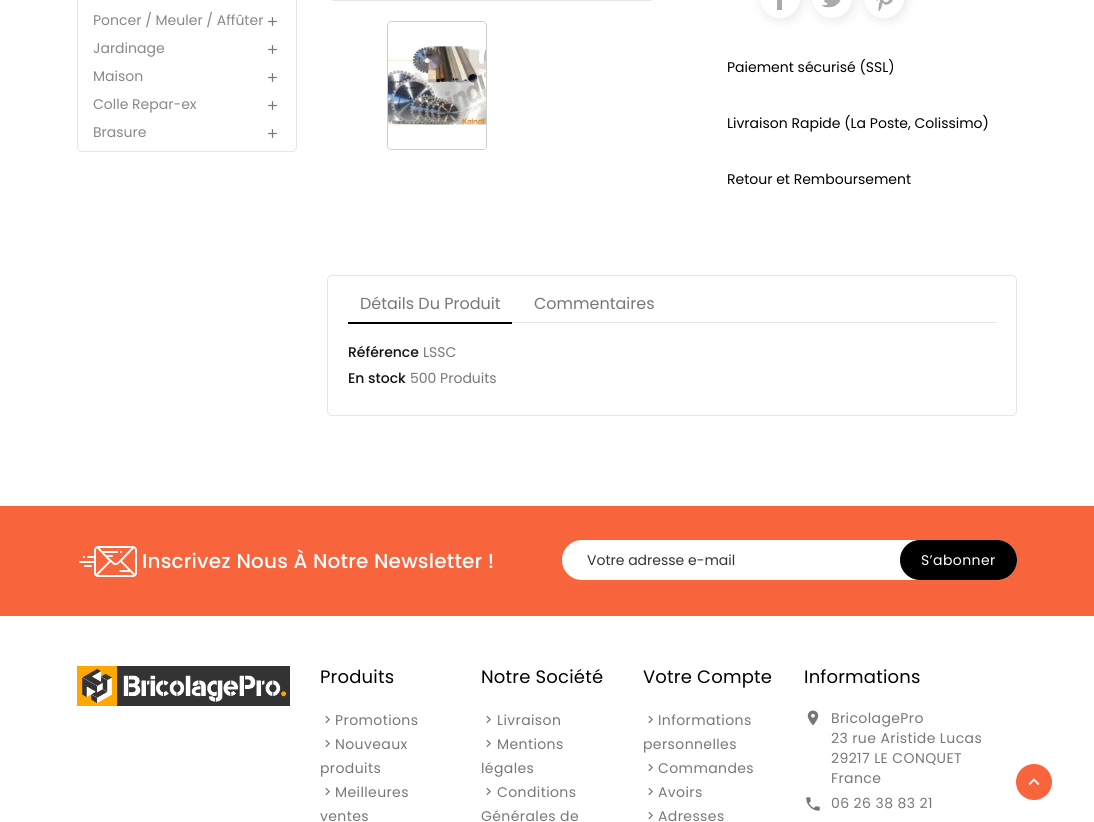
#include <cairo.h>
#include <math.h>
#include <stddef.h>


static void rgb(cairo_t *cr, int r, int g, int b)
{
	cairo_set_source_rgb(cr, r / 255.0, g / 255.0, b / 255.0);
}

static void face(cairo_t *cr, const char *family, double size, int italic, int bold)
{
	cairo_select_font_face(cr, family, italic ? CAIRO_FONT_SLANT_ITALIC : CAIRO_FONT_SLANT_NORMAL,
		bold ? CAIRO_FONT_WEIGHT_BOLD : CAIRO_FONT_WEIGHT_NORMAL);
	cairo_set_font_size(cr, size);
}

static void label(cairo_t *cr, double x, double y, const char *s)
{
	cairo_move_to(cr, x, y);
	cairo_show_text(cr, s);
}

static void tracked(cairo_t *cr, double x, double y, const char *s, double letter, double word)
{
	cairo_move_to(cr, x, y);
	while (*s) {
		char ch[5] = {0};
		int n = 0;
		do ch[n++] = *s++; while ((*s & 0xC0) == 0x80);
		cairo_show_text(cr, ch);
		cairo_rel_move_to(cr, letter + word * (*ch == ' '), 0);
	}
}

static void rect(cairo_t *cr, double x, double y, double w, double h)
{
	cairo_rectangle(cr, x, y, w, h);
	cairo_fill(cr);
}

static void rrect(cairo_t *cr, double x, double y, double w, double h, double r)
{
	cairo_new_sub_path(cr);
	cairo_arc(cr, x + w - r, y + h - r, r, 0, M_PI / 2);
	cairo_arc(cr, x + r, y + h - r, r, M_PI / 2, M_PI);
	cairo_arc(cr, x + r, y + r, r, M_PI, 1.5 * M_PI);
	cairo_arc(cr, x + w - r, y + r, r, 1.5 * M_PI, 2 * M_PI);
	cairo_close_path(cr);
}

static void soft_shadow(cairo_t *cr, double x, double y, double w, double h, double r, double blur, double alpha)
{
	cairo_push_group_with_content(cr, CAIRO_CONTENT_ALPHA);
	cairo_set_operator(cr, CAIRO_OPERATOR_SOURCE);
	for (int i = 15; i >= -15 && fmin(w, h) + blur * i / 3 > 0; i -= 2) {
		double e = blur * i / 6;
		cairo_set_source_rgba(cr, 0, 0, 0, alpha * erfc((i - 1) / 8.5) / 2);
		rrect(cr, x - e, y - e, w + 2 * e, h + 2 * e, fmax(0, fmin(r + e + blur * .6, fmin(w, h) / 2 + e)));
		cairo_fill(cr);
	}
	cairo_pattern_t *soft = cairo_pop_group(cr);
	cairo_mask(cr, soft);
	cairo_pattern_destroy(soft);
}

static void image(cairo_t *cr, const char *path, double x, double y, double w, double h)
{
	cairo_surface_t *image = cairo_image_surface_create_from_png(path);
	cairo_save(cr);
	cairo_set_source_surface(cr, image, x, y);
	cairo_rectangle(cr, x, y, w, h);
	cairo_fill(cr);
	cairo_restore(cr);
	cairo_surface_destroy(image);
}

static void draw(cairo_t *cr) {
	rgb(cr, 255, 255, 255);
	cairo_paint(cr);
	rrect(cr, 77.5, -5.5, 219, 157, 4.5);
	rgb(cr, 229, 229, 229);
	cairo_set_line_width(cr, 1);
	cairo_stroke(cr);
	face(cr, "Poppins", 14, 0, 0);
	rgb(cr, 136, 136, 136);
	label(cr, 93, 25, "Poncer / Meuler / Affûter");
	image(cr, "image0.png", 268, 17, 9, 9);
	label(cr, 93, 53, "Jardinage");
	image(cr, "image0.png", 268, 45, 9, 9);
	label(cr, 93, 81, "Maison");
	image(cr, "image0.png", 268, 73, 9, 9);
	label(cr, 93, 109, "Colle Repar-ex");
	image(cr, "image0.png", 268, 101, 9, 9);
	label(cr, 93, 137, "Brasure");
	image(cr, "image0.png", 268, 129, 9, 9);
	rrect(cr, 327.5, -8.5, 329, 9, 7.5);
	rgb(cr, 229, 229, 229);
	cairo_stroke(cr);
	rrect(cr, 387.5, 21.5, 99, 128, 4.5);
	rgb(cr, 204, 204, 204);
	cairo_stroke(cr);
	image(cr, "image1.png", 388, 22, 98, 127);
	rgb(cr, 0, 0, 0);
	soft_shadow(cr, 762, -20, 40, 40, 20, 5.5, 0.1);
	rgb(cr, 255, 255, 255);
	rrect(cr, 760, -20, 40, 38, 20);
	cairo_fill(cr);
	rgb(cr, 172, 170, 166);
	rect(cr, 777, 0, 5, 10);
	rgb(cr, 0, 0, 0);
	soft_shadow(cr, 814, -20, 40, 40, 20, 5.5, 0.1);
	rgb(cr, 255, 255, 255);
	rrect(cr, 812, -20, 40, 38, 20);
	cairo_fill(cr);
	image(cr, "image2.png", 821, 0, 20, 8);
	rgb(cr, 0, 0, 0);
	soft_shadow(cr, 866, -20, 40, 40, 20, 5.5, 0.1);
	rgb(cr, 255, 255, 255);
	rrect(cr, 864, -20, 40, 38, 20);
	cairo_fill(cr);
	image(cr, "image3.png", 876, 0, 17, 12);
	rgb(cr, 0, 0, 0);
	label(cr, 727, 72, "Paiement sécurisé (SSL)");
	label(cr, 727, 128, "Livraison Rapide (La Poste, Colissimo)");
	label(cr, 727, 184, "Retour et Remboursement");
	rrect(cr, 327.5, 275.5, 689, 140, 4.5);
	rgb(cr, 229, 229, 229);
	cairo_stroke(cr);
	rect(cr, 512, 322, 484, 1);
	rgb(cr, 0, 0, 0);
	rect(cr, 348, 322, 164, 2);
	face(cr, "Poppins", 16, 0, 0);
	rgb(cr, 119, 119, 119);
	label(cr, 360, 309, "Détails Du Produit");
	label(cr, 534, 309, "Commentaires");
	face(cr, "Poppins Medium", 14, 0, 0);
	rgb(cr, 17, 17, 17);
	label(cr, 348, 357, "Référence");
	face(cr, "Poppins", 14, 0, 0);
	rgb(cr, 119, 119, 119);
	label(cr, 423, 357, "LSSC");
	face(cr, "Poppins Medium", 14, 0, 0);
	rgb(cr, 17, 17, 17);
	label(cr, 348, 383, "En stock");
	face(cr, "Poppins", 14, 0, 0);
	rgb(cr, 119, 119, 119);
	label(cr, 410, 383, "500 Produits");
	rgb(cr, 248, 101, 61);
	rect(cr, 0, 506, 1094, 110);
	image(cr, "image4.png", 79, 546, 58, 31);
	face(cr, "Poppins Medium", 20, 0, 0);
	rgb(cr, 255, 255, 255);
	tracked(cr, 142, 568, "Inscrivez Nous À Notre Newsletter !", 0.2, 0);
	rrect(cr, 562, 540, 455, 40, 20);
	cairo_fill(cr);
	face(cr, "Poppins", 14, 0, 0);
	rgb(cr, 51, 51, 51);
	label(cr, 587, 565, "Votre adresse e-mail");
	rgb(cr, 0, 0, 0);
	rrect(cr, 900, 540, 117, 40, 20);
	cairo_fill(cr);
	rgb(cr, 255, 255, 255);
	tracked(cr, 921, 565, "S’abonner", 0.4, 0);
	image(cr, "image5.png", 77, 666, 213, 40);
	face(cr, "Poppins", 18, 0, 0);
	rgb(cr, 0, 0, 0);
	tracked(cr, 320, 683, "Produits", 0.2, 0);
	image(cr, "image6.png", 325, 715, 5, 9);
	face(cr, "Poppins", 14, 0, 0);
	rgb(cr, 119, 119, 119);
	tracked(cr, 335, 725, "Promotions", 0.4, 0);
	image(cr, "image6.png", 325, 739, 5, 9);
	tracked(cr, 335, 749, "Nouveaux", 0.4, 0);
	tracked(cr, 320, 773, "produits", 0.4, 0);
	image(cr, "image6.png", 325, 787, 5, 9);
	tracked(cr, 335, 797, "Meilleures", 0.4, 0);
	tracked(cr, 320, 821, "ventes", 0.4, 0);
	face(cr, "Poppins", 18, 0, 0);
	rgb(cr, 0, 0, 0);
	tracked(cr, 481, 683, "Notre Société", 0.2, 0);
	image(cr, "image6.png", 486, 715, 5, 9);
	face(cr, "Poppins", 14, 0, 0);
	rgb(cr, 119, 119, 119);
	tracked(cr, 497, 725, "Livraison", 0.4, 0);
	image(cr, "image6.png", 486, 739, 5, 9);
	tracked(cr, 497, 749, "Mentions", 0.4, 0);
	tracked(cr, 481, 773, "légales", 0.4, 0);
	image(cr, "image6.png", 486, 787, 5, 9);
	tracked(cr, 497, 797, "Conditions", 0.4, 0);
	tracked(cr, 481, 821, "Générales de", 0.4, 0);
	face(cr, "Poppins", 18, 0, 0);
	rgb(cr, 0, 0, 0);
	tracked(cr, 643, 683, "Votre Compte", 0.2, 0);
	image(cr, "image6.png", 648, 715, 5, 9);
	face(cr, "Poppins", 14, 0, 0);
	rgb(cr, 119, 119, 119);
	tracked(cr, 658, 725, "Informations", 0.4, 0);
	tracked(cr, 643, 749, "personnelles", 0.4, 0);
	image(cr, "image6.png", 648, 763, 5, 9);
	tracked(cr, 658, 773, "Commandes", 0.4, 0);
	image(cr, "image6.png", 648, 787, 5, 9);
	tracked(cr, 658, 797, "Avoirs", 0.4, 0);
	image(cr, "image6.png", 648, 811, 5, 9);
	tracked(cr, 658, 821, "Adresses", 0.4, 0);
	face(cr, "Poppins", 18, 0, 0);
	rgb(cr, 0, 0, 0);
	tracked(cr, 804, 683, "Informations", 0.2, 0);
	image(cr, "image7.png", 807, 710, 12, 16);
	face(cr, "Poppins", 14, 0, 0);
	rgb(cr, 119, 119, 119);
	tracked(cr, 831, 723, "BricolagePro", 0.4, 0);
	tracked(cr, 831, 743, "23 rue Aristide Lucas", 0.4, 0);
	tracked(cr, 831, 763, "29217 LE CONQUET", 0.4, 0);
	tracked(cr, 831, 783, "France", 0.4, 0);
	image(cr, "image8.png", 806, 797, 14, 14);
	tracked(cr, 831, 808, "06 26 38 83 21", 0.4, 0);
	rgb(cr, 248, 101, 61);
	cairo_new_path(cr);
	cairo_arc(cr, 1034, 782, 19, 0, 2 * M_PI);
	cairo_fill_preserve(cr);
	rgb(cr, 255, 255, 255);
	cairo_set_line_width(cr, 2);
	cairo_stroke(cr);
	image(cr, "image9.png", 1028, 778, 12, 7);
}

int main(void) {
	cairo_surface_t *surface = cairo_image_surface_create(CAIRO_FORMAT_RGB24, 1094, 822);
	cairo_t *cr = cairo_create(surface);
	cairo_font_options_t *options = cairo_font_options_create();
	cairo_font_options_set_hint_metrics(options, CAIRO_HINT_METRICS_OFF);
	cairo_font_options_set_hint_style(options, CAIRO_HINT_STYLE_NONE);
	cairo_set_font_options(cr, options);
	cairo_set_miter_limit(cr, 4);
	draw(cr);
	cairo_surface_write_to_png(surface, "render.png");
	cairo_font_options_destroy(options);
	cairo_destroy(cr);
	cairo_surface_destroy(surface);
	return 0;
}
